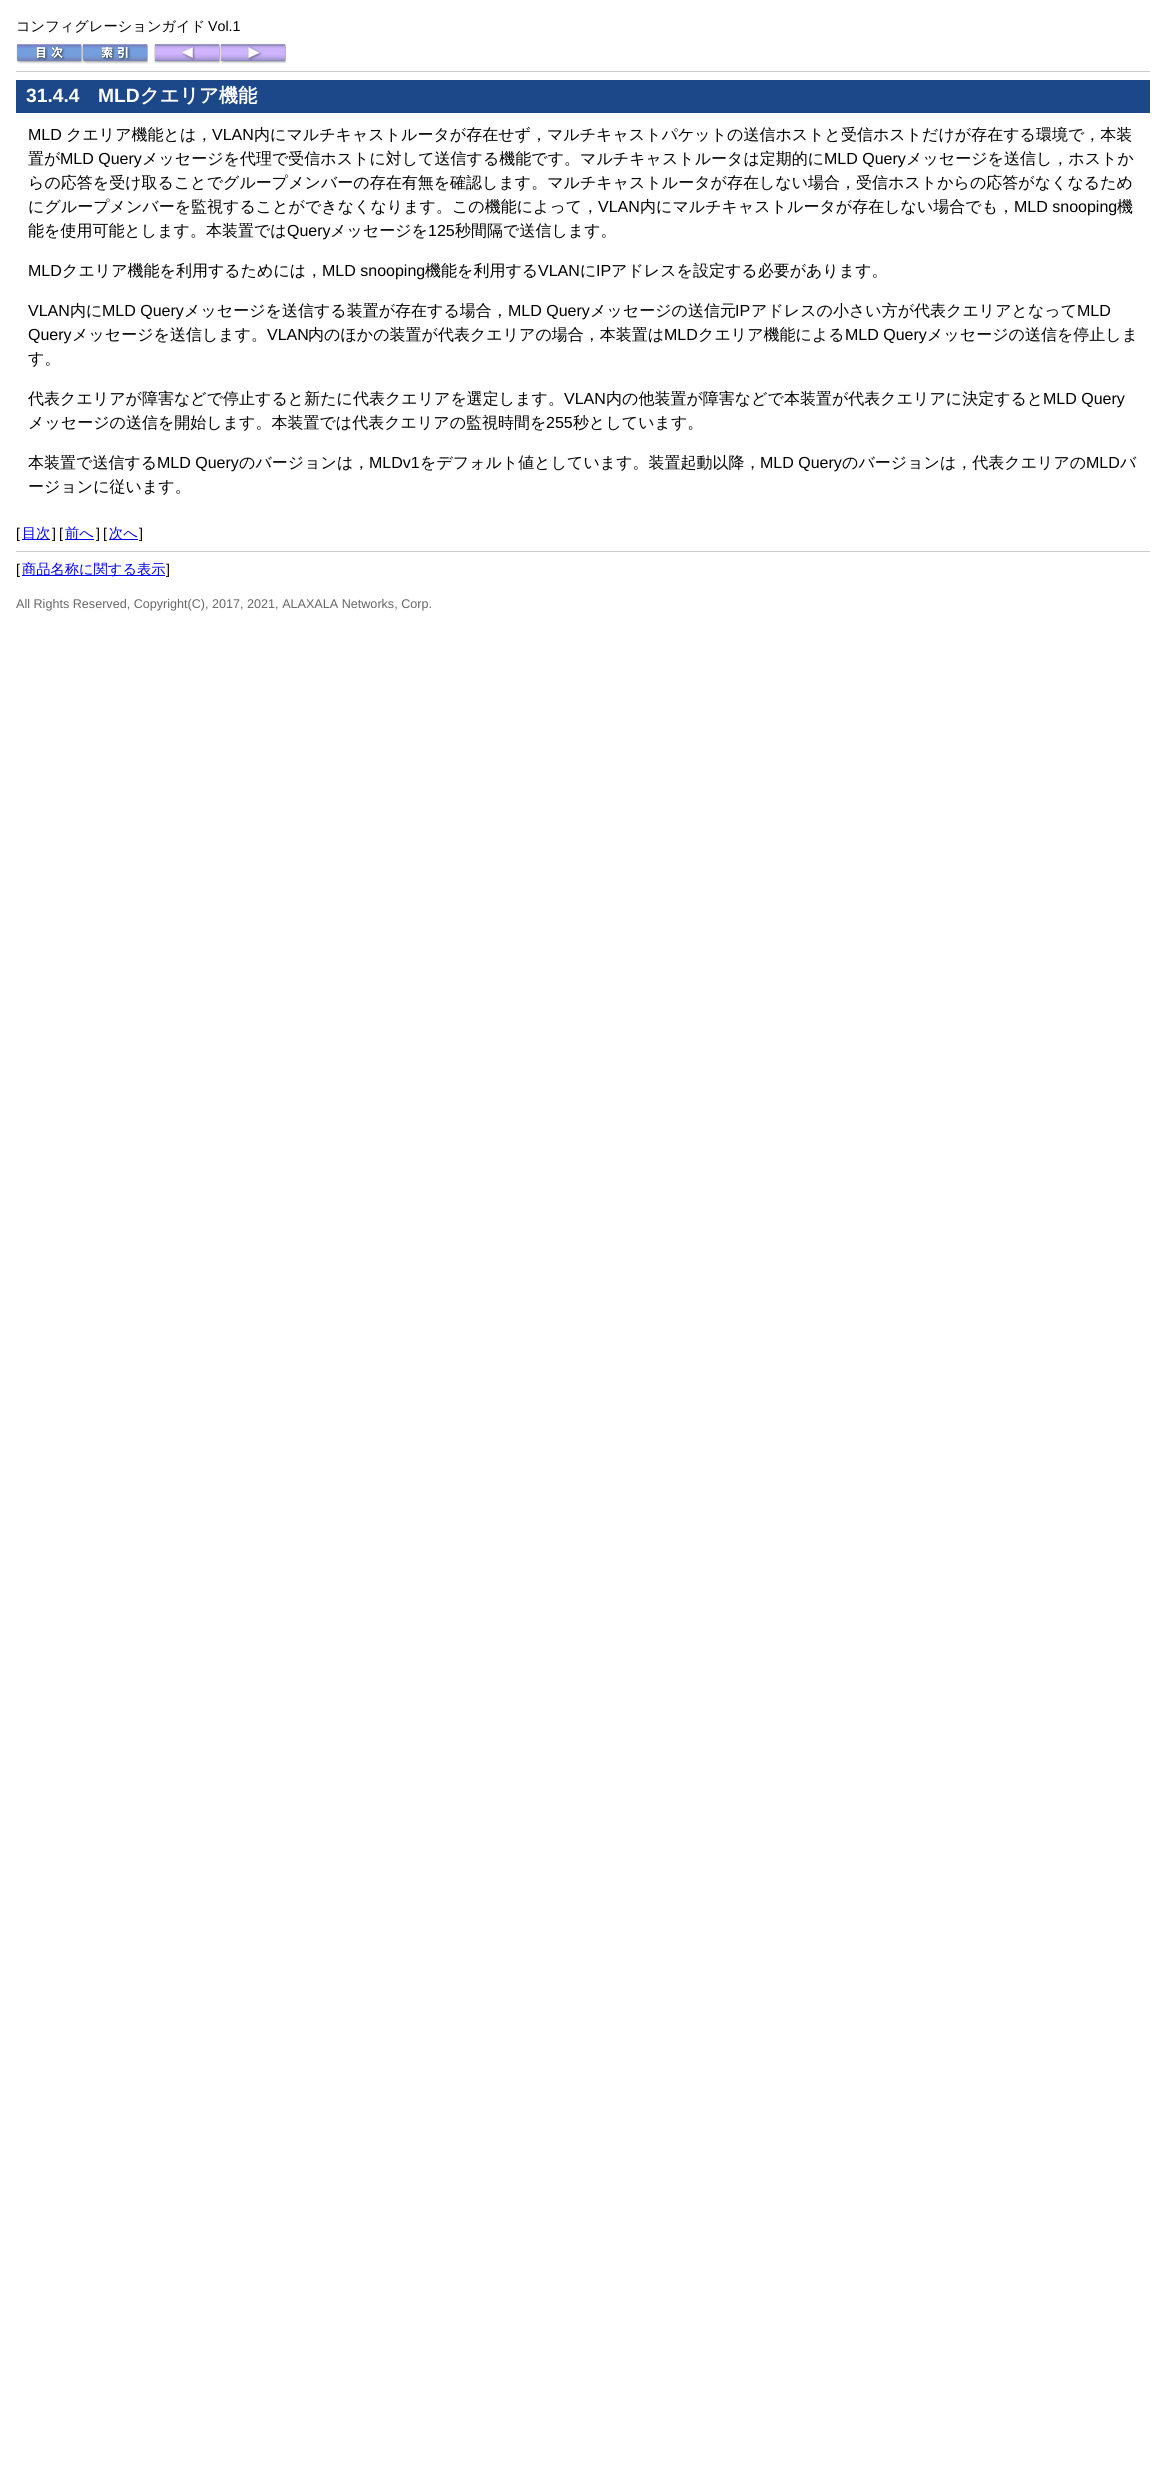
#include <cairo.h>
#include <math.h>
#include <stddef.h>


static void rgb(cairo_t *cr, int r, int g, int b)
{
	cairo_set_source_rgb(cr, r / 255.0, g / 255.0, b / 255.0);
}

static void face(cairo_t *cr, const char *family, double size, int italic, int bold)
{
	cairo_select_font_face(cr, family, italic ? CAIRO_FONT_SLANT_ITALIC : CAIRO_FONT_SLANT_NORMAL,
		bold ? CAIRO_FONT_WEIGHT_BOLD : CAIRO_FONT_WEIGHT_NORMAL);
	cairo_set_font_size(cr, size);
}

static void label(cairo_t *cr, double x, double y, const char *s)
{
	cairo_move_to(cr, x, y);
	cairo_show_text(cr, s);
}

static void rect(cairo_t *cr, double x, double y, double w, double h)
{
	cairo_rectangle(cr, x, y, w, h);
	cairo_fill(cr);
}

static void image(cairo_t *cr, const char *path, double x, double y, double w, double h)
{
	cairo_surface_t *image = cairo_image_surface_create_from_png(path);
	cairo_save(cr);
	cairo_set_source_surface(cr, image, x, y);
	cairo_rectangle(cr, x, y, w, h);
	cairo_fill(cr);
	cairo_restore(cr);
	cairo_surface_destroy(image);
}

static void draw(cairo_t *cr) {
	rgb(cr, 255, 255, 255);
	cairo_paint(cr);
	rgb(cr, 204, 204, 204);
	rect(cr, 16, 71, 1134, 1);
	face(cr, "WenQuanYi Zen Hei Medium", 14.25, 0, 0);
	rgb(cr, 0, 0, 0);
	label(cr, 16, 31, "コンフィグレーションガイド");
	face(cr, "Liberation Sans", 14.25, 0, 0);
	label(cr, 208, 31, "Vol.1");
	image(cr, "image0.png", 16, 44, 66, 20);
	image(cr, "image1.png", 82, 44, 66, 20);
	image(cr, "image2.png", 154, 44, 66, 20);
	image(cr, "image3.png", 220, 44, 66, 20);
	rgb(cr, 28, 71, 137);
	rect(cr, 16, 80, 1134, 33);
	face(cr, "Liberation Sans", 19.25, 0, 1);
	rgb(cr, 255, 255, 255);
	label(cr, 26, 102, "31.4.4");
	label(cr, 98, 102, "MLD");
	face(cr, "WenQuanYi Zen Hei", 19.25, 0, 1);
	label(cr, 140, 102, "クエリア機能");
	face(cr, "Liberation Sans", 16, 0, 0);
	rgb(cr, 0, 0, 0);
	label(cr, 28, 140, "MLD");
	face(cr, "WenQuanYi Zen Hei Medium", 16, 0, 0);
	label(cr, 66, 140, "クエリア機能とは，");
	face(cr, "Liberation Sans", 16, 0, 0);
	label(cr, 212, 140, "VLAN");
	face(cr, "WenQuanYi Zen Hei Medium", 16, 0, 0);
	label(cr, 254, 140, "内にマルチキャストルータが存在せず，マルチキャストパケットの送信ホストと受信ホストだけが存在する環境で，本装");
	label(cr, 28, 164, "置が");
	face(cr, "Liberation Sans", 16, 0, 0);
	label(cr, 60, 164, "MLD Query");
	face(cr, "WenQuanYi Zen Hei Medium", 16, 0, 0);
	label(cr, 142, 164, "メッセージを代理で受信ホストに対して送信する機能です。マルチキャストルータは定期的に");
	face(cr, "Liberation Sans", 16, 0, 0);
	label(cr, 824, 164, "MLD Query");
	face(cr, "WenQuanYi Zen Hei Medium", 16, 0, 0);
	label(cr, 906, 164, "メッセージを送信し，ホストか");
	label(cr, 28, 188, "らの応答を受け取ることでグループメンバーの存在有無を確認します。マルチキャストルータが存在しない場合，受信ホストからの応答がなくなるため");
	label(cr, 28, 212, "にグループメンバーを監視することができなくなります。この機能によって，");
	face(cr, "Liberation Sans", 16, 0, 0);
	label(cr, 598, 212, "VLAN");
	face(cr, "WenQuanYi Zen Hei Medium", 16, 0, 0);
	label(cr, 640, 212, "内にマルチキャストルータが存在しない場合でも，");
	face(cr, "Liberation Sans", 16, 0, 0);
	label(cr, 1014, 212, "MLD snooping");
	face(cr, "WenQuanYi Zen Hei Medium", 16, 0, 0);
	label(cr, 1117, 212, "機");
	label(cr, 28, 236, "能を使用可能とします。本装置では");
	face(cr, "Liberation Sans", 16, 0, 0);
	label(cr, 287, 236, "Query");
	face(cr, "WenQuanYi Zen Hei Medium", 16, 0, 0);
	label(cr, 330, 236, "メッセージを");
	face(cr, "Liberation Sans", 16, 0, 0);
	label(cr, 428, 236, "125");
	face(cr, "WenQuanYi Zen Hei Medium", 16, 0, 0);
	label(cr, 455, 236, "秒間隔で送信します。");
	face(cr, "Liberation Sans", 16, 0, 0);
	label(cr, 28, 276, "MLD");
	face(cr, "WenQuanYi Zen Hei Medium", 16, 0, 0);
	label(cr, 62, 276, "クエリア機能を利用するためには，");
	face(cr, "Liberation Sans", 16, 0, 0);
	label(cr, 322, 276, "MLD snooping");
	face(cr, "WenQuanYi Zen Hei Medium", 16, 0, 0);
	label(cr, 425, 276, "機能を利用する");
	face(cr, "Liberation Sans", 16, 0, 0);
	label(cr, 538, 276, "VLAN");
	face(cr, "WenQuanYi Zen Hei Medium", 16, 0, 0);
	label(cr, 580, 276, "に");
	face(cr, "Liberation Sans", 16, 0, 0);
	label(cr, 596, 276, "IP");
	face(cr, "WenQuanYi Zen Hei Medium", 16, 0, 0);
	label(cr, 611, 276, "アドレスを設定する必要があります。");
	face(cr, "Liberation Sans", 16, 0, 0);
	label(cr, 28, 316, "VLAN");
	face(cr, "WenQuanYi Zen Hei Medium", 16, 0, 0);
	label(cr, 70, 316, "内に");
	face(cr, "Liberation Sans", 16, 0, 0);
	label(cr, 102, 316, "MLD Query");
	face(cr, "WenQuanYi Zen Hei Medium", 16, 0, 0);
	label(cr, 184, 316, "メッセージを送信する装置が存在する場合，");
	face(cr, "Liberation Sans", 16, 0, 0);
	label(cr, 508, 316, "MLD Query");
	face(cr, "WenQuanYi Zen Hei Medium", 16, 0, 0);
	label(cr, 590, 316, "メッセージの送信元");
	face(cr, "Liberation Sans", 16, 0, 0);
	label(cr, 735, 316, "IP");
	face(cr, "WenQuanYi Zen Hei Medium", 16, 0, 0);
	label(cr, 751, 316, "アドレスの小さい方が代表クエリアとなって");
	face(cr, "Liberation Sans", 16, 0, 0);
	label(cr, 1077, 316, "MLD");
	label(cr, 28, 340, "Query");
	face(cr, "WenQuanYi Zen Hei Medium", 16, 0, 0);
	label(cr, 72, 340, "メッセージを送信します。");
	face(cr, "Liberation Sans", 16, 0, 0);
	label(cr, 267, 340, "VLAN");
	face(cr, "WenQuanYi Zen Hei Medium", 16, 0, 0);
	label(cr, 308, 340, "内のほかの装置が代表クエリアの場合，本装置は");
	face(cr, "Liberation Sans", 16, 0, 0);
	label(cr, 664, 340, "MLD");
	face(cr, "WenQuanYi Zen Hei Medium", 16, 0, 0);
	label(cr, 698, 340, "クエリア機能による");
	face(cr, "Liberation Sans", 16, 0, 0);
	label(cr, 845, 340, "MLD Query");
	face(cr, "WenQuanYi Zen Hei Medium", 16, 0, 0);
	label(cr, 927, 340, "メッセージの送信を停止しま");
	label(cr, 28, 364, "す。");
	label(cr, 28, 404, "代表クエリアが障害などで停止すると新たに代表クエリアを選定します。");
	face(cr, "Liberation Sans", 16, 0, 0);
	label(cr, 564, 404, "VLAN");
	face(cr, "WenQuanYi Zen Hei Medium", 16, 0, 0);
	label(cr, 606, 404, "内の他装置が障害などで本装置が代表クエリアに決定すると");
	face(cr, "Liberation Sans", 16, 0, 0);
	label(cr, 1043, 404, "MLD Query");
	face(cr, "WenQuanYi Zen Hei Medium", 16, 0, 0);
	label(cr, 28, 428, "メッセージの送信を開始します。本装置では代表クエリアの監視時間を");
	face(cr, "Liberation Sans", 16, 0, 0);
	label(cr, 546, 428, "255");
	face(cr, "WenQuanYi Zen Hei Medium", 16, 0, 0);
	label(cr, 573, 428, "秒としています。");
	label(cr, 28, 468, "本装置で送信する");
	face(cr, "Liberation Sans", 16, 0, 0);
	label(cr, 157, 468, "MLD Query");
	face(cr, "WenQuanYi Zen Hei Medium", 16, 0, 0);
	label(cr, 239, 468, "のバージョンは，");
	face(cr, "Liberation Sans", 16, 0, 0);
	label(cr, 369, 468, "MLDv1");
	face(cr, "WenQuanYi Zen Hei Medium", 16, 0, 0);
	label(cr, 420, 468, "をデフォルト値としています。装置起動以降，");
	face(cr, "Liberation Sans", 16, 0, 0);
	label(cr, 760, 468, "MLD Query");
	face(cr, "WenQuanYi Zen Hei Medium", 16, 0, 0);
	label(cr, 842, 468, "のバージョンは，代表クエリアの");
	face(cr, "Liberation Sans", 16, 0, 0);
	label(cr, 1086, 468, "MLD");
	face(cr, "WenQuanYi Zen Hei Medium", 16, 0, 0);
	label(cr, 1120, 468, "バ");
	label(cr, 28, 492, "ージョンに従います。");
	face(cr, "Liberation Sans", 14.25, 0, 0);
	label(cr, 16, 538, "[");
	rgb(cr, 0, 0, 238);
	rect(cr, 22, 539, 28, 1);
	face(cr, "WenQuanYi Zen Hei Medium", 14.25, 0, 0);
	label(cr, 22, 538, "目次");
	face(cr, "Liberation Sans", 14.25, 0, 0);
	rgb(cr, 0, 0, 0);
	label(cr, 52, 538, "]");
	label(cr, 59, 538, "[");
	rgb(cr, 0, 0, 238);
	rect(cr, 65, 539, 29, 1);
	face(cr, "WenQuanYi Zen Hei Medium", 14.25, 0, 0);
	label(cr, 65, 538, "前へ");
	face(cr, "Liberation Sans", 14.25, 0, 0);
	rgb(cr, 0, 0, 0);
	label(cr, 96, 538, "]");
	label(cr, 103, 538, "[");
	rgb(cr, 0, 0, 238);
	rect(cr, 109, 539, 29, 1);
	face(cr, "WenQuanYi Zen Hei Medium", 14.25, 0, 0);
	label(cr, 109, 538, "次へ");
	face(cr, "Liberation Sans", 14.25, 0, 0);
	rgb(cr, 0, 0, 0);
	label(cr, 139, 538, "]");
	rgb(cr, 204, 204, 204);
	rect(cr, 16, 551, 1134, 1);
	rgb(cr, 0, 0, 0);
	label(cr, 16, 574, "[");
	rgb(cr, 0, 0, 238);
	rect(cr, 22, 575, 143, 1);
	face(cr, "WenQuanYi Zen Hei Medium", 14.25, 0, 0);
	label(cr, 22, 574, "商品名称に関する表示");
	face(cr, "Liberation Sans", 14.25, 0, 0);
	rgb(cr, 0, 0, 0);
	label(cr, 166, 574, "]");
	face(cr, "Liberation Sans", 12.6, 0, 0);
	rgb(cr, 102, 102, 102);
	label(cr, 16, 608, "All Rights Reserved, Copyright(C), 2017, 2021, ALAXALA Networks, Corp.");
}

int main(void) {
	cairo_surface_t *surface = cairo_image_surface_create(CAIRO_FORMAT_RGB24, 1166, 2471);
	cairo_t *cr = cairo_create(surface);
	cairo_font_options_t *options = cairo_font_options_create();
	cairo_font_options_set_hint_metrics(options, CAIRO_HINT_METRICS_OFF);
	cairo_font_options_set_hint_style(options, CAIRO_HINT_STYLE_NONE);
	cairo_set_font_options(cr, options);
	cairo_set_miter_limit(cr, 4);
	draw(cr);
	cairo_surface_write_to_png(surface, "render.png");
	cairo_font_options_destroy(options);
	cairo_destroy(cr);
	cairo_surface_destroy(surface);
	return 0;
}
